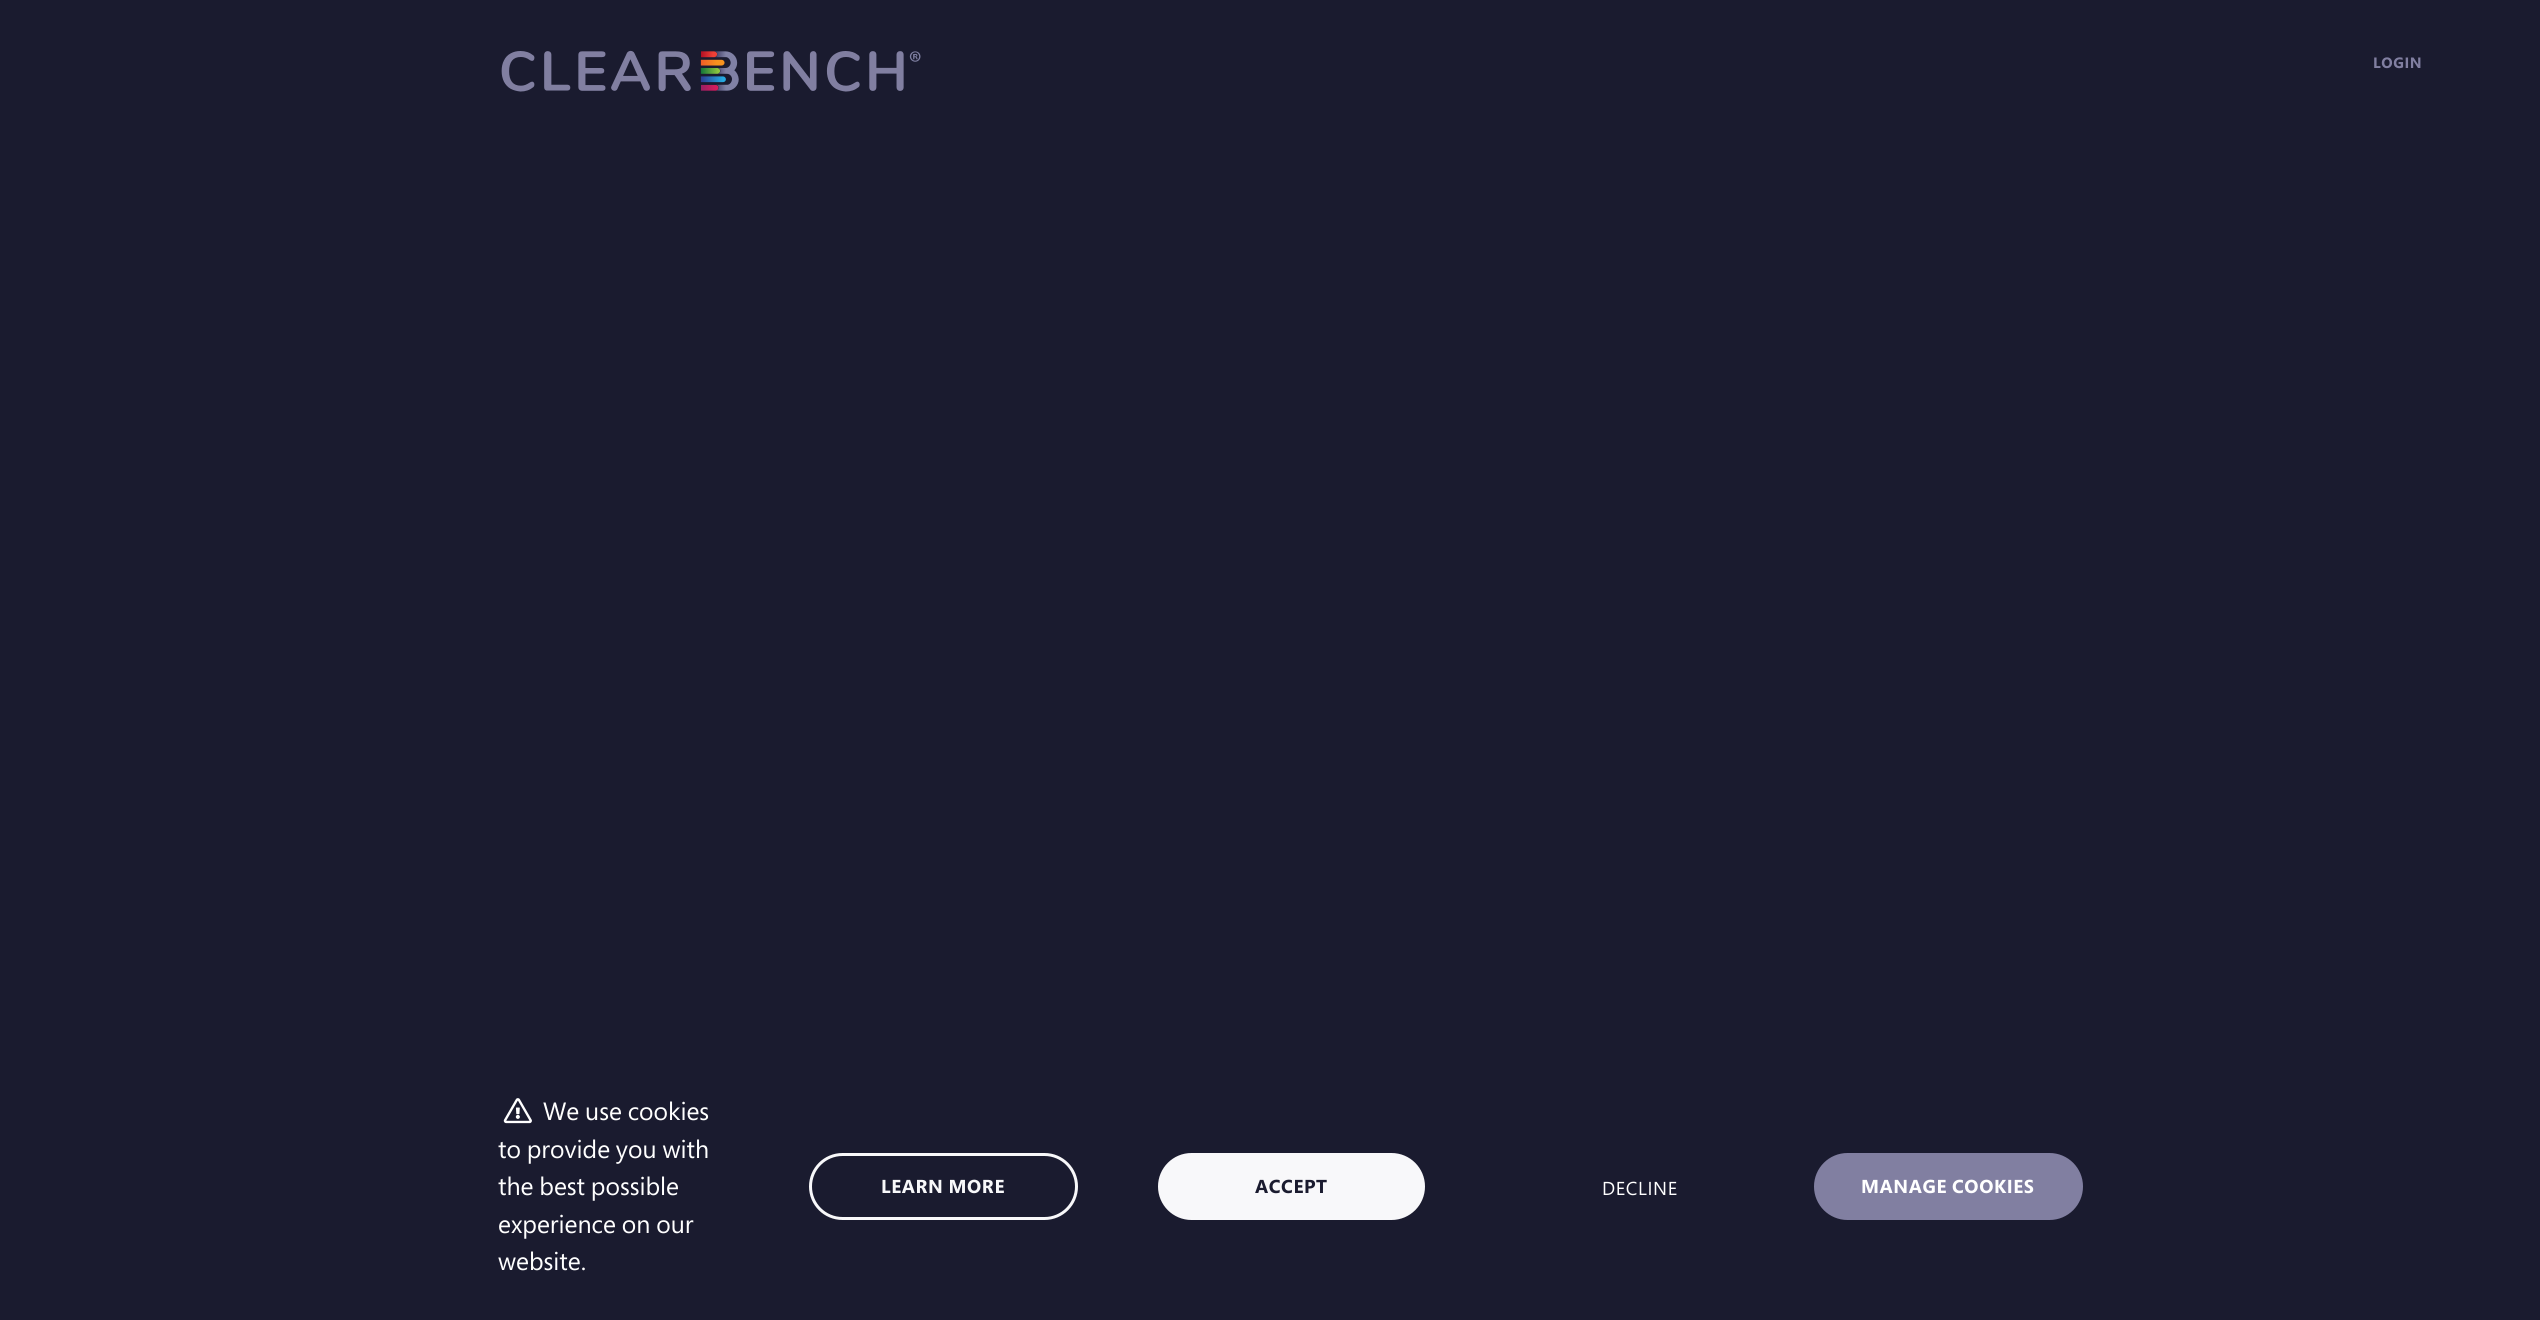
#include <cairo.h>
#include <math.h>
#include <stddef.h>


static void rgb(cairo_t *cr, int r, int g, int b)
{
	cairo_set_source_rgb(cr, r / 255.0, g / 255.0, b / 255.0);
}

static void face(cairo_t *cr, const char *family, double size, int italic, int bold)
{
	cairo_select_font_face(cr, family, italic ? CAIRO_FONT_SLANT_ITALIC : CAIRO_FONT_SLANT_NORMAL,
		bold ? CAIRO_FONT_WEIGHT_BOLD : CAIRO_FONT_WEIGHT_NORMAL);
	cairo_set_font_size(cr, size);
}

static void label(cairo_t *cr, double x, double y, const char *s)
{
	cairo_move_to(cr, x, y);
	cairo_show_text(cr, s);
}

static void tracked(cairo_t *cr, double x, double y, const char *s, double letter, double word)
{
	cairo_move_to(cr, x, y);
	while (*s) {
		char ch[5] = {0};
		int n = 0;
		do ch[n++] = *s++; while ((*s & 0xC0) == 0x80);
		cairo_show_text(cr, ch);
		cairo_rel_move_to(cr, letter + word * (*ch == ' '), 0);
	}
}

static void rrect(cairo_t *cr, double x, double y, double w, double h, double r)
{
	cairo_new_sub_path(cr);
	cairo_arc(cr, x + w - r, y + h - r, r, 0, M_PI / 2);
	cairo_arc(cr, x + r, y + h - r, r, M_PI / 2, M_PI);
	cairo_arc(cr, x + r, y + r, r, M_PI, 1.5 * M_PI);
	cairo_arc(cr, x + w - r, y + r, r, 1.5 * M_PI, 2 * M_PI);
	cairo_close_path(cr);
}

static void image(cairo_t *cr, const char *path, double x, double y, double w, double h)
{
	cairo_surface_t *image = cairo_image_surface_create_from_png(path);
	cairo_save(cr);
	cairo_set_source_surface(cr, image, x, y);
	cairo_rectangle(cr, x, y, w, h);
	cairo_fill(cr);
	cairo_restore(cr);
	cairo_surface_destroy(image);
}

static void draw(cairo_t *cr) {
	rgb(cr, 26, 27, 47);
	cairo_paint(cr);
	image(cr, "image0.png", 501, 50, 420, 42);
	face(cr, "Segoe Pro", 15, 0, 1);
	rgb(cr, 129, 127, 161);
	tracked(cr, 2373, 68, "LOGIN", 0.6, 0);
	image(cr, "image1.png", 503, 1098, 29, 26);
	face(cr, "Segoe Pro", 25, 0, 0);
	rgb(cr, 255, 255, 255);
	label(cr, 543, 1120, "We use cookies");
	label(cr, 498, 1158, "to provide you with");
	label(cr, 498, 1195, "the best possible");
	label(cr, 498, 1233, "experience on our");
	label(cr, 498, 1270, "website.");
	rrect(cr, 810.5, 1154.5, 266, 64, 32);
	rgb(cr, 248, 248, 250);
	cairo_set_line_width(cr, 3);
	cairo_stroke(cr);
	face(cr, "Segoe Pro", 18.75, 0, 1);
	tracked(cr, 881, 1193, "LEARN MORE", 0.6, 0);
	rrect(cr, 1159.5, 1154.5, 264, 64, 32);
	cairo_fill_preserve(cr);
	cairo_stroke(cr);
	rgb(cr, 26, 27, 47);
	tracked(cr, 1255, 1193, "ACCEPT", 0.6, 0);
	face(cr, "Segoe Pro", 18.75, 0, 0);
	rgb(cr, 255, 255, 255);
	tracked(cr, 1602, 1195, "DECLINE", 0.6, 0);
	rgb(cr, 129, 127, 161);
	rrect(cr, 1815.5, 1154.5, 266, 64, 32);
	cairo_fill_preserve(cr);
	cairo_stroke(cr);
	face(cr, "Segoe Pro", 18.75, 0, 1);
	rgb(cr, 255, 255, 255);
	tracked(cr, 1861, 1193, "MANAGE COOKIES", 0.6, 0);
}

int main(void) {
	cairo_surface_t *surface = cairo_image_surface_create(CAIRO_FORMAT_RGB24, 2540, 1320);
	cairo_t *cr = cairo_create(surface);
	cairo_font_options_t *options = cairo_font_options_create();
	cairo_font_options_set_hint_metrics(options, CAIRO_HINT_METRICS_OFF);
	cairo_font_options_set_hint_style(options, CAIRO_HINT_STYLE_NONE);
	cairo_set_font_options(cr, options);
	cairo_set_miter_limit(cr, 4);
	draw(cr);
	cairo_surface_write_to_png(surface, "render.png");
	cairo_font_options_destroy(options);
	cairo_destroy(cr);
	cairo_surface_destroy(surface);
	return 0;
}
